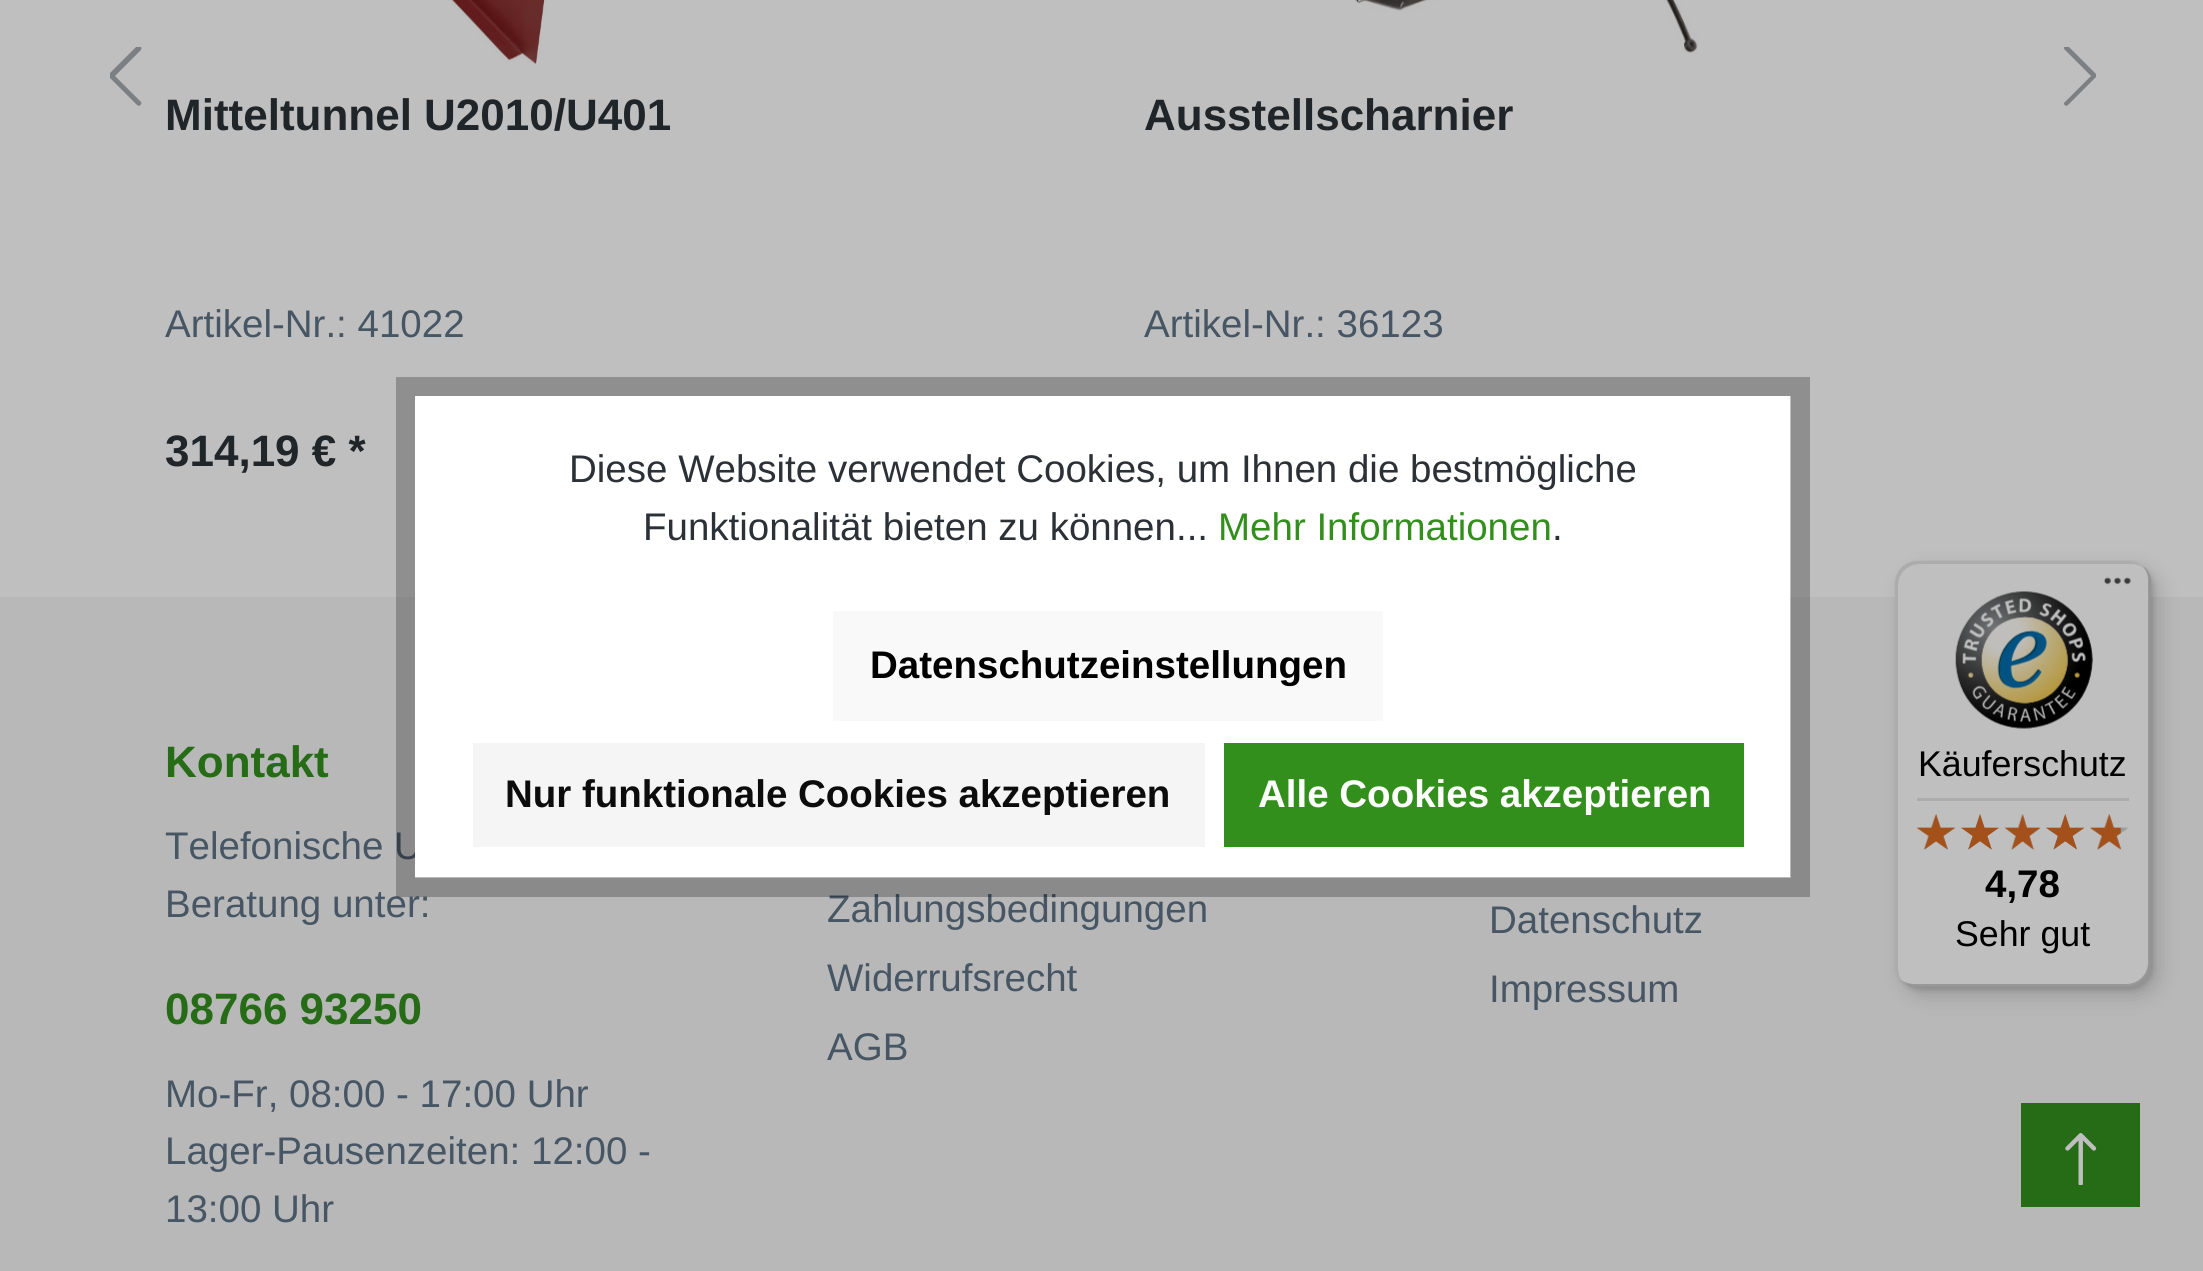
#include <cairo.h>
#include <math.h>
#include <stddef.h>


static void rgb(cairo_t *cr, int r, int g, int b)
{
	cairo_set_source_rgb(cr, r / 255.0, g / 255.0, b / 255.0);
}

static void face(cairo_t *cr, const char *family, double size, int italic, int bold)
{
	cairo_select_font_face(cr, family, italic ? CAIRO_FONT_SLANT_ITALIC : CAIRO_FONT_SLANT_NORMAL,
		bold ? CAIRO_FONT_WEIGHT_BOLD : CAIRO_FONT_WEIGHT_NORMAL);
	cairo_set_font_size(cr, size);
}

static void label(cairo_t *cr, double x, double y, const char *s)
{
	cairo_move_to(cr, x, y);
	cairo_show_text(cr, s);
}

static void rect(cairo_t *cr, double x, double y, double w, double h)
{
	cairo_rectangle(cr, x, y, w, h);
	cairo_fill(cr);
}

static void rrect(cairo_t *cr, double x, double y, double w, double h, double r)
{
	cairo_new_sub_path(cr);
	cairo_arc(cr, x + w - r, y + h - r, r, 0, M_PI / 2);
	cairo_arc(cr, x + r, y + h - r, r, M_PI / 2, M_PI);
	cairo_arc(cr, x + r, y + r, r, M_PI, 1.5 * M_PI);
	cairo_arc(cr, x + w - r, y + r, r, 1.5 * M_PI, 2 * M_PI);
	cairo_close_path(cr);
}

static void soft_shadow(cairo_t *cr, double x, double y, double w, double h, double r, double blur, double alpha)
{
	cairo_push_group_with_content(cr, CAIRO_CONTENT_ALPHA);
	cairo_set_operator(cr, CAIRO_OPERATOR_SOURCE);
	for (int i = 15; i >= -15 && fmin(w, h) + blur * i / 3 > 0; i -= 2) {
		double e = blur * i / 6;
		cairo_set_source_rgba(cr, 0, 0, 0, alpha * erfc((i - 1) / 8.5) / 2);
		rrect(cr, x - e, y - e, w + 2 * e, h + 2 * e, fmax(0, fmin(r + e + blur * .6, fmin(w, h) / 2 + e)));
		cairo_fill(cr);
	}
	cairo_pattern_t *soft = cairo_pop_group(cr);
	cairo_mask(cr, soft);
	cairo_pattern_destroy(soft);
}

static void image(cairo_t *cr, const char *path, double x, double y, double w, double h)
{
	cairo_surface_t *image = cairo_image_surface_create_from_png(path);
	cairo_save(cr);
	cairo_set_source_surface(cr, image, x, y);
	cairo_rectangle(cr, x, y, w, h);
	cairo_fill(cr);
	cairo_restore(cr);
	cairo_surface_destroy(image);
}

static void draw(cairo_t *cr) {
	rgb(cr, 191, 191, 191);
	cairo_paint(cr);
	cairo_save(cr);
	cairo_rectangle(cr, 110, 47, 44, 60);
	cairo_clip(cr);
	rgb(cr, 124, 128, 130);
	cairo_set_fill_rule(cr, CAIRO_FILL_RULE_EVEN_ODD);
	cairo_new_path(cr);
	cairo_move_to(cr, 115, 76);
	cairo_line_to(cr, 141, 102);
	cairo_curve_to(cr, 142, 103, 141, 105, 139, 106);
	cairo_line_to(cr, 137, 105);
	cairo_line_to(cr, 109, 77);
	cairo_line_to(cr, 109, 76);
	cairo_line_to(cr, 109, 74);
	cairo_line_to(cr, 137, 46);
	cairo_line_to(cr, 139, 45);
	cairo_curve_to(cr, 141, 46, 142, 48, 141, 50);
	cairo_close_path(cr);
	cairo_fill(cr);
	cairo_restore(cr);
	cairo_save(cr);
	cairo_rectangle(cr, 2052, 47, 44, 60);
	cairo_clip(cr);
	rgb(cr, 124, 128, 130);
	cairo_set_fill_rule(cr, CAIRO_FILL_RULE_EVEN_ODD);
	cairo_new_path(cr);
	cairo_move_to(cr, 2091, 76);
	cairo_line_to(cr, 2065, 102);
	cairo_curve_to(cr, 2063, 103, 2064, 105, 2066, 106);
	cairo_line_to(cr, 2068, 105);
	cairo_line_to(cr, 2096, 77);
	cairo_line_to(cr, 2097, 76);
	cairo_line_to(cr, 2096, 74);
	cairo_line_to(cr, 2068, 46);
	cairo_line_to(cr, 2066, 45);
	cairo_curve_to(cr, 2064, 46, 2063, 48, 2065, 50);
	cairo_close_path(cr);
	cairo_fill(cr);
	cairo_restore(cr);
	image(cr, "image0.png", 447, 0, 100, 64);
	face(cr, "Liberation Sans", 44, 0, 1);
	rgb(cr, 32, 37, 41);
	label(cr, 165, 130, "Mitteltunnel U2010/U401");
	face(cr, "Liberation Sans", 38.5, 0, 0);
	rgb(cr, 71, 86, 100);
	label(cr, 165, 337, "Artikel-Nr.: 41022");
	face(cr, "Liberation Sans", 44, 0, 1);
	rgb(cr, 32, 37, 41);
	label(cr, 165, 466, "314,19 € *");
	image(cr, "image1.png", 1355, 0, 343, 53);
	label(cr, 1144, 130, "Ausstellscharnier");
	face(cr, "Liberation Sans", 38.5, 0, 0);
	rgb(cr, 71, 86, 100);
	label(cr, 1144, 337, "Artikel-Nr.: 36123");
	rgb(cr, 184, 184, 184);
	rect(cr, 0, 597, 2203, 674);
	rgb(cr, 71, 86, 100);
	label(cr, 165, 859, "Telefonische U");
	label(cr, 165, 917, "Beratung unter:");
	label(cr, 827, 922, "Zahlungsbedingungen");
	cairo_rectangle(cr, 405.5, 386.5, 1395, 501);
	cairo_set_source_rgba(cr, 0, 0, 0, 0.25);
	cairo_set_line_width(cr, 19);
	cairo_stroke(cr);
	rgb(cr, 255, 255, 255);
	rect(cr, 415, 396, 1375, 481);
	rgb(cr, 43, 49, 54);
	label(cr, 569, 482, "Diese Website verwendet Cookies, um Ihnen die bestmögliche");
	label(cr, 643, 540, "Funktionalität bieten zu können...");
	rgb(cr, 50, 143, 28);
	label(cr, 1218, 540, "Mehr Informationen");
	rgb(cr, 43, 49, 54);
	label(cr, 1552, 540, ".");
	rgb(cr, 249, 249, 249);
	rect(cr, 833, 611, 550, 110);
	face(cr, "Liberation Sans", 38.5, 0, 1);
	rgb(cr, 0, 0, 0);
	label(cr, 870, 678, "Datenschutzeinstellungen");
	rgb(cr, 245, 245, 245);
	rect(cr, 473, 743, 732, 104);
	rgb(cr, 12, 12, 12);
	label(cr, 505, 807, "Nur funktionale Cookies akzeptieren");
	rgb(cr, 50, 143, 28);
	rect(cr, 1224, 743, 520, 104);
	rgb(cr, 255, 255, 255);
	label(cr, 1258, 807, "Alle Cookies akzeptieren");
	face(cr, "Liberation Sans", 44, 0, 1);
	rgb(cr, 38, 107, 21);
	label(cr, 165, 777, "Kontakt");
	label(cr, 165, 1024, "08766 93250");
	face(cr, "Liberation Sans", 38.5, 0, 0);
	rgb(cr, 71, 86, 100);
	label(cr, 165, 1107, "Mo-Fr, 08:00 - 17:00 Uhr");
	label(cr, 165, 1164, "Lager-Pausenzeiten: 12:00 -");
	label(cr, 165, 1222, "13:00 Uhr");
	label(cr, 827, 991, "Widerrufsrecht");
	label(cr, 827, 1060, "AGB");
	label(cr, 1489, 933, "Datenschutz");
	label(cr, 1489, 1002, "Impressum");
	rgb(cr, 0, 0, 0);
	soft_shadow(cr, 1903, 569, 256, 427, 22, 11, 0.15);
	soft_shadow(cr, 1898, 564, 255, 426, 22, 3, 0.15);
	rgb(cr, 191, 191, 191);
	rrect(cr, 1895, 561, 256, 426, 22);
	cairo_fill(cr);
	cairo_set_source_rgba(cr, 0, 0, 0, 0.1);
	cairo_new_path(cr);
	cairo_move_to(cr, 1920, 564);
	cairo_line_to(cr, 2131, 564);
	cairo_curve_to(cr, 2138, 564, 2144, 567, 2148, 573);
	cairo_curve_to(cr, 2145, 566, 2137, 561, 2129, 561);
	cairo_line_to(cr, 1917, 561);
	cairo_curve_to(cr, 1905, 561, 1895, 571, 1895, 583);
	cairo_line_to(cr, 1895, 965);
	cairo_curve_to(cr, 1895, 972, 1898, 977, 1902, 981);
	cairo_curve_to(cr, 1900, 978, 1898, 973, 1898, 968);
	cairo_line_to(cr, 1898, 586);
	cairo_curve_to(cr, 1898, 574, 1907, 564, 1920, 564);
	cairo_close_path(cr);
	cairo_fill(cr);
	cairo_set_source_rgba(cr, 0, 0, 0, 0.2);
	cairo_new_path(cr);
	cairo_move_to(cr, 1901, 980);
	cairo_curve_to(cr, 1905, 984, 1910, 987, 1917, 987);
	cairo_line_to(cr, 2129, 987);
	cairo_curve_to(cr, 2141, 987, 2151, 977, 2151, 965);
	cairo_line_to(cr, 2151, 583);
	cairo_curve_to(cr, 2151, 576, 2148, 570, 2143, 566);
	cairo_curve_to(cr, 2146, 570, 2148, 575, 2148, 580);
	cairo_line_to(cr, 2148, 962);
	cairo_curve_to(cr, 2148, 975, 2138, 984, 2126, 984);
	cairo_line_to(cr, 1914, 984);
	cairo_curve_to(cr, 1909, 984, 1904, 982, 1901, 980);
	cairo_close_path(cr);
	cairo_fill(cr);
	cairo_set_source_rgba(cr, 0.149, 0.149, 0.149, 0.2);
	cairo_new_path(cr);
	cairo_move_to(cr, 1906, 984);
	cairo_curve_to(cr, 1909, 986, 1913, 987, 1917, 987);
	cairo_line_to(cr, 2129, 987);
	cairo_curve_to(cr, 2141, 987, 2151, 977, 2151, 965);
	cairo_line_to(cr, 2151, 583);
	cairo_curve_to(cr, 2151, 576, 2148, 570, 2143, 566);
	cairo_curve_to(cr, 2147, 570, 2149, 575, 2149, 581);
	cairo_line_to(cr, 2149, 964);
	cairo_curve_to(cr, 2149, 976, 2139, 986, 2127, 986);
	cairo_line_to(cr, 1915, 986);
	cairo_curve_to(cr, 1912, 986, 1909, 985, 1906, 984);
	cairo_close_path(cr);
	cairo_fill(cr);
	cairo_set_source_rgba(cr, 0.749, 0.749, 0.749, 0.3);
	cairo_new_path(cr);
	cairo_move_to(cr, 1906, 984);
	cairo_curve_to(cr, 1909, 986, 1913, 987, 1917, 987);
	cairo_line_to(cr, 2129, 987);
	cairo_curve_to(cr, 2141, 987, 2151, 977, 2151, 965);
	cairo_line_to(cr, 2151, 583);
	cairo_curve_to(cr, 2151, 575, 2146, 567, 2139, 563);
	cairo_curve_to(cr, 2145, 567, 2149, 574, 2149, 582);
	cairo_line_to(cr, 2149, 964);
	cairo_curve_to(cr, 2149, 976, 2139, 986, 2127, 986);
	cairo_line_to(cr, 1915, 986);
	cairo_curve_to(cr, 1912, 986, 1909, 985, 1906, 984);
	cairo_close_path(cr);
	cairo_fill(cr);
	image(cr, "image2.png", 2104, 577, 27, 8);
	image(cr, "image3.png", 1955, 591, 138, 138);
	face(cr, "Liberation Sans", 35.75, 0, 0);
	rgb(cr, 0, 0, 0);
	label(cr, 1918, 776, "Käuferschutz");
	rgb(cr, 172, 172, 172);
	rect(cr, 1917, 798, 212, 3);
	image(cr, "image9.png", 1917, 814, 38, 36);
	image(cr, "image4.png", 1916, 814, 39, 36);
	image(cr, "image10.png", 1961, 814, 38, 36);
	image(cr, "image5.png", 1961, 814, 38, 36);
	image(cr, "image11.png", 2005, 814, 35, 36);
	image(cr, "image6.png", 2004, 814, 37, 36);
	image(cr, "image12.png", 2046, 814, 38, 36);
	image(cr, "image7.png", 2046, 814, 38, 36);
	image(cr, "image13.png", 2090, 814, 38, 36);
	image(cr, "image8.png", 2090, 814, 31, 36);
	face(cr, "Liberation Sans", 38.5, 0, 1);
	rgb(cr, 0, 0, 0);
	label(cr, 1985, 897, "4,78");
	face(cr, "Liberation Sans", 35.75, 0, 0);
	label(cr, 1955, 946, "Sehr gut");
	rgb(cr, 38, 107, 21);
	rect(cr, 2021, 1103, 119, 104);
	image(cr, "image14.png", 2065, 1133, 32, 52);
}

int main(void) {
	cairo_surface_t *surface = cairo_image_surface_create(CAIRO_FORMAT_RGB24, 2203, 1271);
	cairo_t *cr = cairo_create(surface);
	cairo_font_options_t *options = cairo_font_options_create();
	cairo_font_options_set_hint_metrics(options, CAIRO_HINT_METRICS_OFF);
	cairo_font_options_set_hint_style(options, CAIRO_HINT_STYLE_NONE);
	cairo_set_font_options(cr, options);
	cairo_set_miter_limit(cr, 4);
	draw(cr);
	cairo_surface_write_to_png(surface, "render.png");
	cairo_font_options_destroy(options);
	cairo_destroy(cr);
	cairo_surface_destroy(surface);
	return 0;
}
